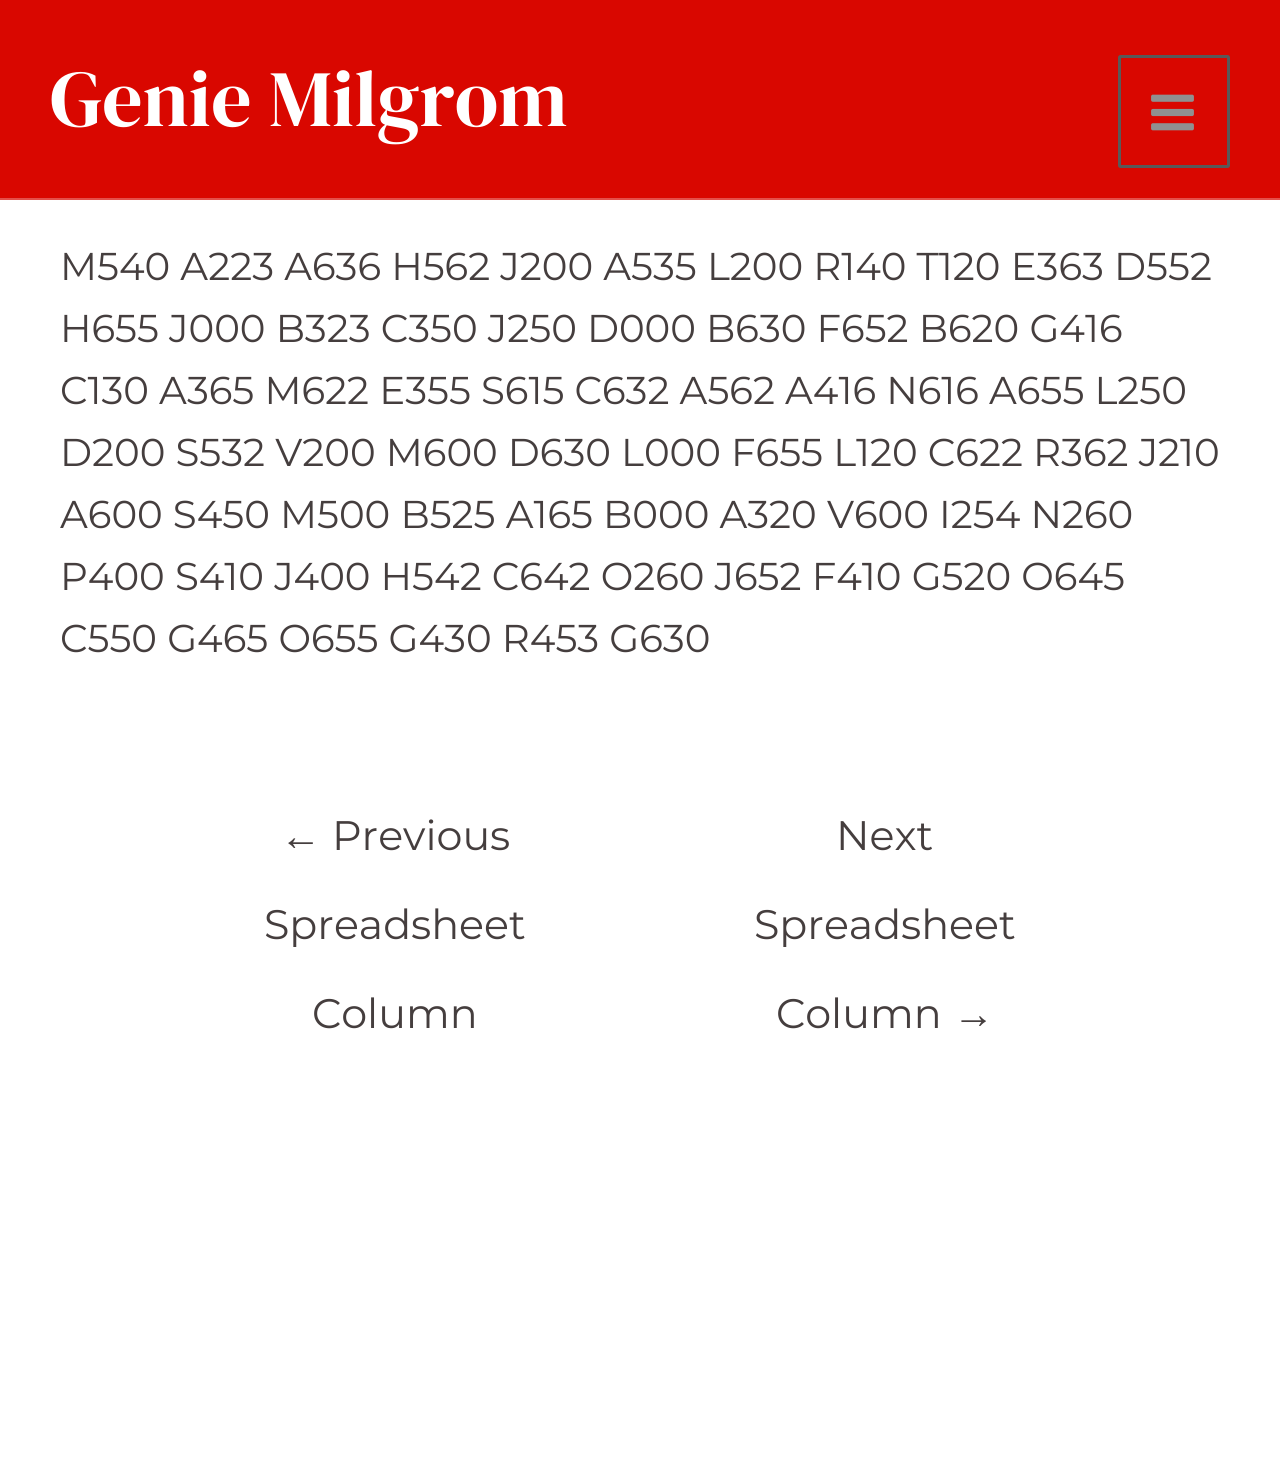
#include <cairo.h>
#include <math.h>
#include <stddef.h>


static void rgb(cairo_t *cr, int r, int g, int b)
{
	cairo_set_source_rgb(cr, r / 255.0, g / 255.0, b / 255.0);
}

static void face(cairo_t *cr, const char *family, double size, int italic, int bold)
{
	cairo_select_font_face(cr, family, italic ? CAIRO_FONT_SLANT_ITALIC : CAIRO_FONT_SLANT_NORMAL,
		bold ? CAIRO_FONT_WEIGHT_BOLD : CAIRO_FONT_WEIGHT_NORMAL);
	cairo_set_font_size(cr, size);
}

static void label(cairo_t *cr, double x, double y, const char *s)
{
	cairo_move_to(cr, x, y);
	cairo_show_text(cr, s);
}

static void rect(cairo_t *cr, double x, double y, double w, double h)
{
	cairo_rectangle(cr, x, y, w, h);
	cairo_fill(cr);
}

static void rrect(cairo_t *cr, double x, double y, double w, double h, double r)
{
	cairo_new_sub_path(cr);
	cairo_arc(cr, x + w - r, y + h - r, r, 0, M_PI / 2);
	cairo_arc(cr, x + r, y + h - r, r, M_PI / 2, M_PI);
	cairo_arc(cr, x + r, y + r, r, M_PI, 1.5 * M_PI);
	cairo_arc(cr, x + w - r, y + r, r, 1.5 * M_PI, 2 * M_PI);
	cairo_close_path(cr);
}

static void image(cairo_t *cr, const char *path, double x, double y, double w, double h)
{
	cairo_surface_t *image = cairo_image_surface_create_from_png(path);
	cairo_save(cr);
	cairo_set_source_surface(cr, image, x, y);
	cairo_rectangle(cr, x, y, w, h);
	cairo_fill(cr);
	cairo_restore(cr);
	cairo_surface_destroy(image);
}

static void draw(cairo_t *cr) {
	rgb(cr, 255, 255, 255);
	cairo_paint(cr);
	rgb(cr, 217, 7, 0);
	rect(cr, 0, 0, 1280, 198);
	rgb(cr, 228, 79, 74);
	rect(cr, 0, 198, 1280, 2);
	face(cr, "DM Serif Display", 79.75, 0, 0);
	rgb(cr, 255, 255, 255);
	label(cr, 50, 126, "Genie Milgrom");
	rrect(cr, 1119.5, 56.5, 109, 110, 1);
	rgb(cr, 89, 89, 89);
	cairo_set_line_width(cr, 3);
	cairo_stroke(cr);
	image(cr, "image0.png", 1151, 94, 43, 37);
	face(cr, "Montserrat Thin", 38.75, 0, 0);
	rgb(cr, 69, 62, 62);
	label(cr, 60, 280, "M540 A223 A636 H562 J200 A535 L200 R140 T120 E363 D552");
	label(cr, 60, 342, "H655 J000 B323 C350 J250 D000 B630 F652 B620 G416");
	label(cr, 60, 404, "C130 A365 M622 E355 S615 C632 A562 A416 N616 A655 L250");
	label(cr, 60, 466, "D200 S532 V200 M600 D630 L000 F655 L120 C622 R362 J210");
	label(cr, 60, 528, "A600 S450 M500 B525 A165 B000 A320 V600 I254 N260");
	label(cr, 60, 590, "P400 S410 J400 H542 C642 O260 J652 F410 G520 O645");
	label(cr, 60, 652, "C550 G465 O655 G430 R453 G630");
	face(cr, "Liberation Sans", 41.25, 0, 0);
	label(cr, 280, 850, "←");
	face(cr, "Montserrat Thin", 41.25, 0, 0);
	label(cr, 332, 850, "Previous");
	label(cr, 264, 939, "Spreadsheet");
	label(cr, 312, 1028, "Column");
	label(cr, 836, 850, "Next");
	label(cr, 754, 939, "Spreadsheet");
	label(cr, 776, 1028, "Column");
	face(cr, "Liberation Sans", 41.25, 0, 0);
	label(cr, 953, 1028, "→");
}

int main(void) {
	cairo_surface_t *surface = cairo_image_surface_create(CAIRO_FORMAT_RGB24, 1280, 1480);
	cairo_t *cr = cairo_create(surface);
	cairo_font_options_t *options = cairo_font_options_create();
	cairo_font_options_set_hint_metrics(options, CAIRO_HINT_METRICS_OFF);
	cairo_font_options_set_hint_style(options, CAIRO_HINT_STYLE_NONE);
	cairo_set_font_options(cr, options);
	cairo_set_miter_limit(cr, 4);
	draw(cr);
	cairo_surface_write_to_png(surface, "render.png");
	cairo_font_options_destroy(options);
	cairo_destroy(cr);
	cairo_surface_destroy(surface);
	return 0;
}
